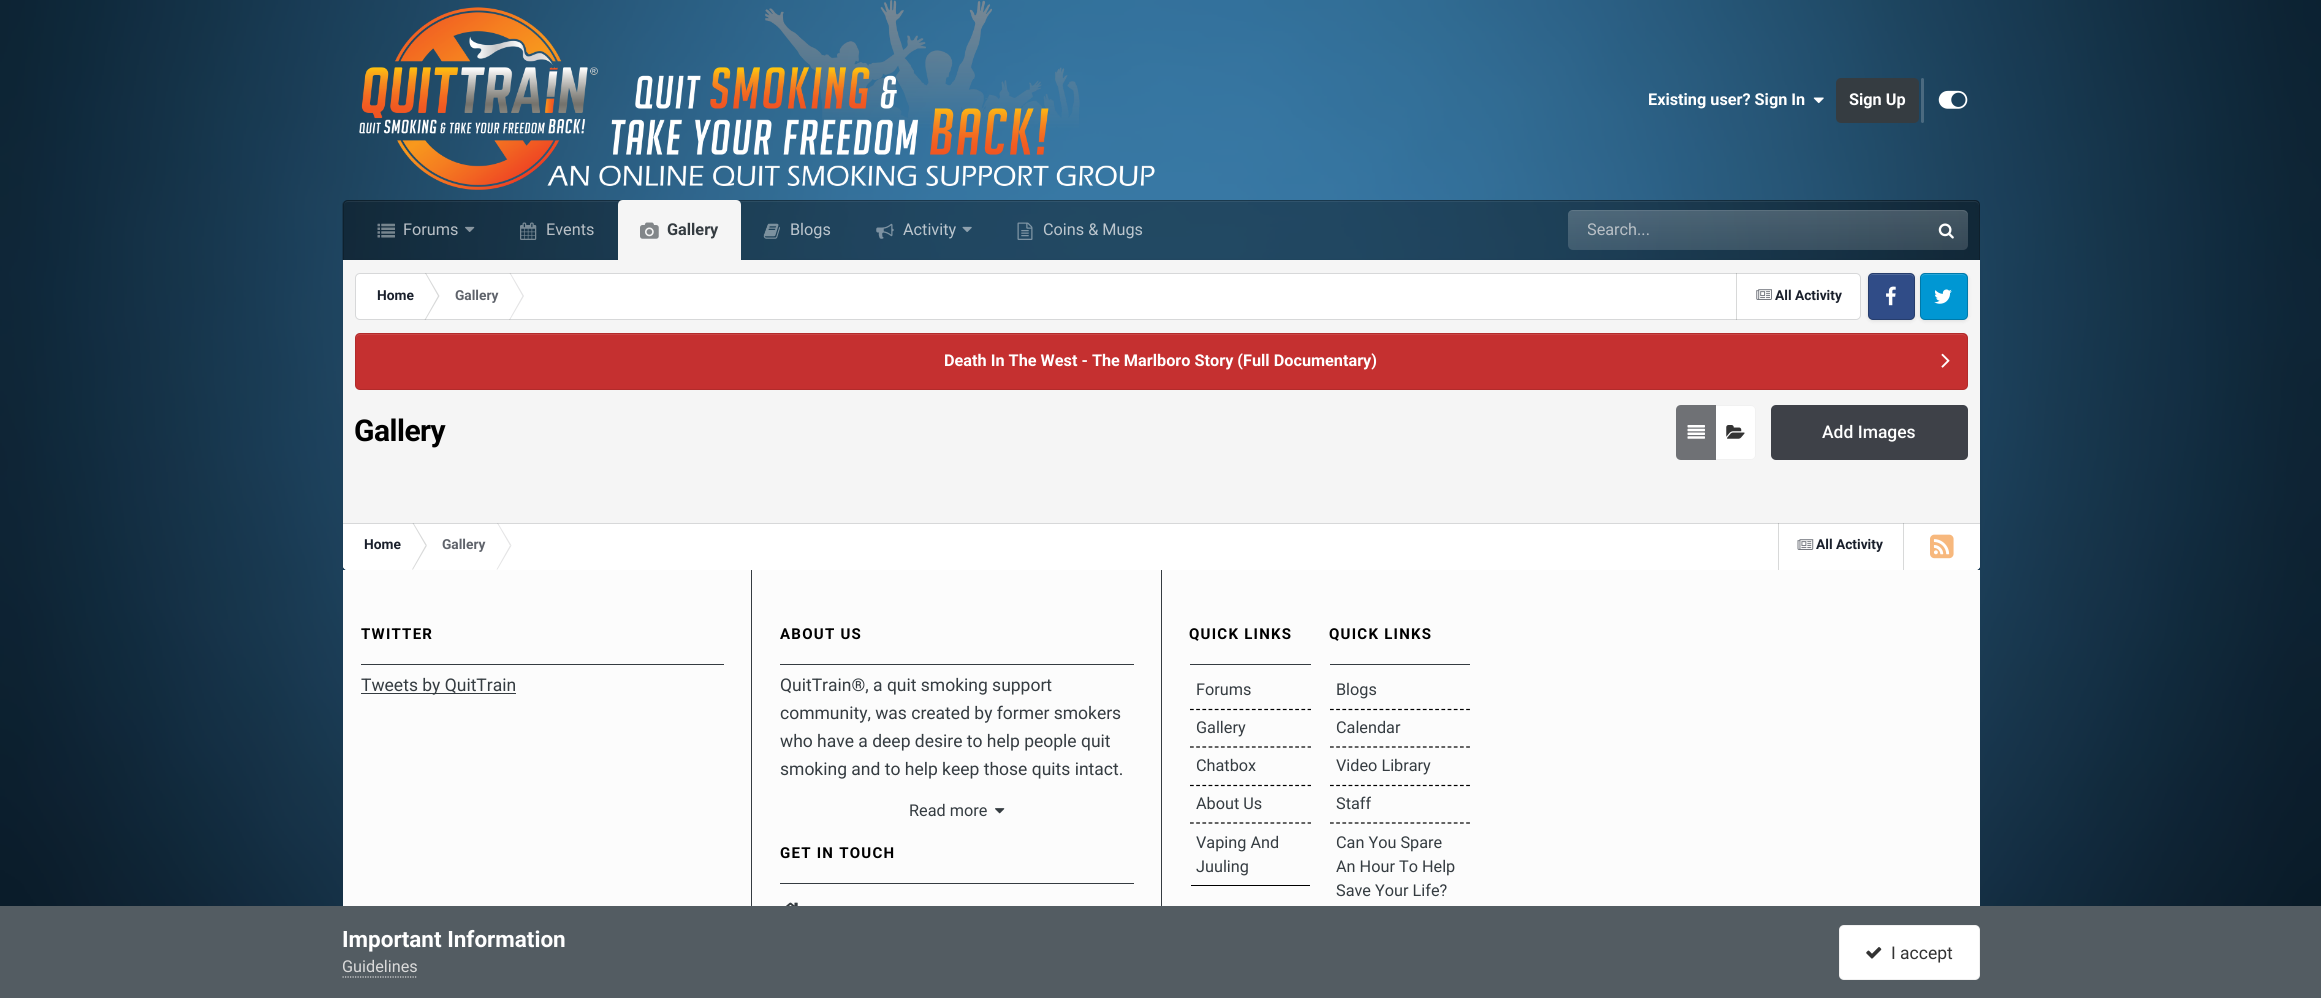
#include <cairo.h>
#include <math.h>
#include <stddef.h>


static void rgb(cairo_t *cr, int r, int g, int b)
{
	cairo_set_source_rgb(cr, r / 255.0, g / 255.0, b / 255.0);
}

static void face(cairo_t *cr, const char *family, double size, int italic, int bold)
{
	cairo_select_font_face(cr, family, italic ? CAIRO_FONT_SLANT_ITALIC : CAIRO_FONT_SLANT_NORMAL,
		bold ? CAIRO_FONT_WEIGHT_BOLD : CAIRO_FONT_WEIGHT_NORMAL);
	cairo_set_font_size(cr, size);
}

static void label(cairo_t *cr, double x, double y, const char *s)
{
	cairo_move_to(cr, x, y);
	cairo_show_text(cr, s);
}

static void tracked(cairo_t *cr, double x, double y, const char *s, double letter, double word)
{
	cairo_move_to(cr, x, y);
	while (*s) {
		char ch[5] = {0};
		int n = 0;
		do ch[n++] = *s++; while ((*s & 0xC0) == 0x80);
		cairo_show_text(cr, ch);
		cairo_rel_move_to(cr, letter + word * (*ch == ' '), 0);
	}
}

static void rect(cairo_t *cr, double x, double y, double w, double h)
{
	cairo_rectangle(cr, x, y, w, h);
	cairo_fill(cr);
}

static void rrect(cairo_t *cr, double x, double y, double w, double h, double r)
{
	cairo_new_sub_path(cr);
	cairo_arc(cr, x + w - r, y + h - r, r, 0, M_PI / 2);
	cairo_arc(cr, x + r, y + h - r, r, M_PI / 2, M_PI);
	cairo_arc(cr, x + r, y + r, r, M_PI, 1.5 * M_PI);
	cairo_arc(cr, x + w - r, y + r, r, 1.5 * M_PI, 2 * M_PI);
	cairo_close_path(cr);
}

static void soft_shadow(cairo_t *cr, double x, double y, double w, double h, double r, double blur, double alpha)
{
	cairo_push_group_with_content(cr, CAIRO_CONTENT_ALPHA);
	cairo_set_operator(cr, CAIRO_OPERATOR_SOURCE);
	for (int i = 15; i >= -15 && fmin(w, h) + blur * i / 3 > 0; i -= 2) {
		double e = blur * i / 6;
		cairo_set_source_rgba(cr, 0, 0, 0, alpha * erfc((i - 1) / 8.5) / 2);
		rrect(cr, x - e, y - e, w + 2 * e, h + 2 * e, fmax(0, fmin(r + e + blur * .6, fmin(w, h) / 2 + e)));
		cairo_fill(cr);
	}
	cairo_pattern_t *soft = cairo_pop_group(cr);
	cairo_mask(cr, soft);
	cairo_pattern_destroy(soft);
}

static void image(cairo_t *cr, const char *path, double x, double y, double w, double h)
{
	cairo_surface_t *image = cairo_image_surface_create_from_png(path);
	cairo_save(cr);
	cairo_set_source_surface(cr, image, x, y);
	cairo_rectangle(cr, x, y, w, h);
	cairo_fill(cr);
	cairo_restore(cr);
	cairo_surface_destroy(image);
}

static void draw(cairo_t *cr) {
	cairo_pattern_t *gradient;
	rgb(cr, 255, 255, 255);
	cairo_paint(cr);
	image(cr, "image0.png", 0, 0, 2321, 906);
	image(cr, "image1.png", 359, 0, 796, 190);
	face(cr, "Roboto", 16.25, 0, 1);
	rgb(cr, 255, 255, 255);
	label(cr, 1648, 105, "Existing user? Sign In");
	image(cr, "image2.png", 1813, 97, 11, 7);
	rgb(cr, 53, 60, 65);
	rrect(cr, 1836, 78, 83, 45, 5);
	cairo_fill(cr);
	rgb(cr, 255, 255, 255);
	label(cr, 1849, 105, "Sign Up");
	rgb(cr, 75, 106, 128);
	rrect(cr, 1921, 78, 3, 45, 1.5);
	cairo_fill(cr);
	image(cr, "image3.png", 1938, 90, 30, 19);
	rgb(cr, 0, 0, 0);
	soft_shadow(cr, 343, 261, 1637, 310, 4, 2, 0.08);
	cairo_set_source_rgba(cr, 0, 0, 0, 0.4);
	cairo_new_path(cr);
	cairo_move_to(cr, 348, 200);
	cairo_line_to(cr, 1975, 200);
	cairo_curve_to(cr, 1978, 200, 1980, 202, 1980, 205);
	cairo_line_to(cr, 1980, 260);
	cairo_line_to(cr, 343, 260);
	cairo_line_to(cr, 343, 205);
	cairo_curve_to(cr, 343, 202, 345, 200, 348, 200);
	cairo_close_path(cr);
	cairo_fill(cr);
	cairo_set_source_rgba(cr, 1, 1, 1, 0.07);
	cairo_new_path(cr);
	cairo_move_to(cr, 348, 202);
	cairo_line_to(cr, 1975, 202);
	cairo_curve_to(cr, 1977, 202, 1979, 204, 1979, 206);
	cairo_line_to(cr, 1979, 205);
	cairo_curve_to(cr, 1979, 203, 1977, 201, 1975, 201);
	cairo_line_to(cr, 348, 201);
	cairo_curve_to(cr, 346, 201, 344, 203, 344, 205);
	cairo_line_to(cr, 344, 206);
	cairo_curve_to(cr, 344, 204, 345, 202, 348, 202);
	cairo_close_path(cr);
	cairo_fill(cr);
	cairo_set_source_rgba(cr, 0, 0, 0, 0.2);
	cairo_set_fill_rule(cr, CAIRO_FILL_RULE_EVEN_ODD);
	cairo_new_path(cr);
	cairo_move_to(cr, 348, 200);
	cairo_line_to(cr, 1975, 200);
	cairo_curve_to(cr, 1978, 200, 1980, 202, 1980, 205);
	cairo_line_to(cr, 1980, 260);
	cairo_line_to(cr, 342, 260);
	cairo_line_to(cr, 342, 205);
	cairo_curve_to(cr, 342, 202, 345, 200, 348, 200);
	cairo_close_path(cr);
	cairo_move_to(cr, 348, 201);
	cairo_line_to(cr, 1975, 201);
	cairo_curve_to(cr, 1977, 201, 1979, 203, 1979, 205);
	cairo_line_to(cr, 1979, 260);
	cairo_line_to(cr, 344, 260);
	cairo_line_to(cr, 344, 205);
	cairo_curve_to(cr, 344, 203, 345, 201, 348, 201);
	cairo_close_path(cr);
	cairo_fill(cr);
	image(cr, "image4.png", 377, 223, 18, 15);
	face(cr, "Roboto", 16.25, 0, 0);
	rgb(cr, 185, 192, 198);
	label(cr, 403, 235, "Forums");
	image(cr, "image5.png", 465, 226, 10, 6);
	image(cr, "image6.png", 520, 222, 17, 18);
	label(cr, 546, 235, "Events");
	rgb(cr, 245, 245, 245);
	cairo_new_path(cr);
	cairo_move_to(cr, 623, 200);
	cairo_line_to(cr, 736, 200);
	cairo_curve_to(cr, 739, 200, 741, 202, 741, 205);
	cairo_line_to(cr, 741, 260);
	cairo_line_to(cr, 618, 260);
	cairo_line_to(cr, 618, 205);
	cairo_curve_to(cr, 618, 202, 620, 200, 623, 200);
	cairo_close_path(cr);
	cairo_fill(cr);
	image(cr, "image7.png", 640, 222, 19, 17);
	face(cr, "Roboto", 16.25, 0, 1);
	rgb(cr, 53, 60, 65);
	label(cr, 667, 235, "Gallery");
	image(cr, "image8.png", 763, 223, 17, 16);
	face(cr, "Roboto", 16.25, 0, 0);
	rgb(cr, 188, 198, 206);
	label(cr, 790, 235, "Blogs");
	image(cr, "image9.png", 876, 223, 18, 16);
	label(cr, 903, 235, "Activity");
	image(cr, "image10.png", 962, 226, 10, 6);
	image(cr, "image11.png", 1017, 222, 16, 18);
	label(cr, 1043, 235, "Coins & Mugs");
	cairo_set_source_rgba(cr, 1, 1, 1, 0.15);
	rrect(cr, 1568, 210, 400, 40, 5);
	cairo_fill(cr);
	gradient = cairo_pattern_create_linear(1768, 210, 1768, 250);
	cairo_pattern_add_color_stop_rgba(gradient, 0, 1, 1, 1, 0.08);
	cairo_pattern_add_color_stop_rgba(gradient, 1, 1, 1, 1, 0);
	cairo_set_source(cr, gradient);
	cairo_pattern_destroy(gradient);
	rrect(cr, 1568, 210, 400, 40, 5);
	cairo_fill(cr);
	cairo_set_source_rgba(cr, 1, 1, 1, 0.1);
	cairo_set_fill_rule(cr, CAIRO_FILL_RULE_WINDING);
	cairo_new_path(cr);
	cairo_move_to(cr, 1572, 211);
	cairo_line_to(cr, 1962, 211);
	cairo_curve_to(cr, 1965, 211, 1968, 213, 1968, 216);
	cairo_line_to(cr, 1968, 215);
	cairo_curve_to(cr, 1968, 212, 1966, 210, 1963, 210);
	cairo_line_to(cr, 1573, 210);
	cairo_curve_to(cr, 1570, 210, 1568, 212, 1568, 215);
	cairo_line_to(cr, 1568, 216);
	cairo_curve_to(cr, 1568, 213, 1570, 211, 1572, 211);
	cairo_close_path(cr);
	cairo_fill(cr);
	cairo_save(cr);
	cairo_rectangle(cr, 1588, 220, 188, 19);
	cairo_clip(cr);
	rgb(cr, 185, 192, 198);
	label(cr, 1587, 235, "Search...");
	cairo_restore(cr);
	image(cr, "image12.png", 1938, 223, 16, 16);
	rgb(cr, 245, 245, 245);
	cairo_new_path(cr);
	cairo_move_to(cr, 343, 260);
	cairo_line_to(cr, 1980, 260);
	cairo_line_to(cr, 1980, 566);
	cairo_curve_to(cr, 1980, 568, 1978, 570, 1976, 570);
	cairo_line_to(cr, 347, 570);
	cairo_curve_to(cr, 345, 570, 343, 568, 343, 566);
	cairo_close_path(cr);
	cairo_fill(cr);
	rgb(cr, 255, 255, 255);
	rrect(cr, 355, 273, 1506, 47, 5);
	cairo_fill(cr);
	rgb(cr, 216, 217, 217);
	cairo_new_path(cr);
	cairo_move_to(cr, 426, 273);
	cairo_line_to(cr, 425, 273);
	cairo_line_to(cr, 438, 296);
	cairo_line_to(cr, 439.5, 296);
	cairo_close_path(cr);
	cairo_move_to(cr, 424.5, 320);
	cairo_line_to(cr, 425.5, 320);
	cairo_line_to(cr, 439.5, 296);
	cairo_line_to(cr, 438, 296);
	cairo_close_path(cr);
	cairo_fill(cr);
	rgb(cr, 228, 228, 229);
	cairo_new_path(cr);
	cairo_move_to(cr, 510.5, 273);
	cairo_line_to(cr, 509.5, 273);
	cairo_line_to(cr, 522.5, 296);
	cairo_line_to(cr, 524, 296);
	cairo_close_path(cr);
	cairo_move_to(cr, 509, 320);
	cairo_line_to(cr, 510, 320);
	cairo_line_to(cr, 524, 296);
	cairo_line_to(cr, 522.5, 296);
	cairo_close_path(cr);
	cairo_fill(cr);
	rgb(cr, 216, 217, 217);
	rect(cr, 1736, 273, 1, 47);
	image(cr, "image13.png", 1756, 289, 16, 11);
	rrect(cr, 355.5, 273.5, 1505, 46, 4.5);
	cairo_set_source_rgba(cr, 0.231, 0.251, 0.263, 0.2);
	cairo_set_line_width(cr, 1);
	cairo_stroke(cr);
	face(cr, "Roboto", 13.75, 0, 1);
	rgb(cr, 26, 32, 44);
	label(cr, 377, 300, "Home");
	rgb(cr, 95, 99, 107);
	label(cr, 455, 300, "Gallery");
	rgb(cr, 26, 32, 44);
	label(cr, 1775, 300, "All Activity");
	rgb(cr, 0, 0, 0);
	soft_shadow(cr, 1868, 274, 47, 47, 5, 2, 0.1);
	rgb(cr, 48, 76, 135);
	rrect(cr, 1868, 273, 47, 47, 5);
	cairo_fill(cr);
	rgb(cr, 79, 103, 153);
	cairo_new_path(cr);
	cairo_move_to(cr, 1872, 275);
	cairo_curve_to(cr, 1870, 275, 1869, 277, 1869, 279);
	cairo_curve_to(cr, 1869, 273, 1874, 274, 1879, 274);
	cairo_line_to(cr, 1904, 274);
	cairo_curve_to(cr, 1909, 274, 1914, 273, 1914, 279);
	cairo_curve_to(cr, 1914, 277, 1912, 275, 1910, 275);
	cairo_close_path(cr);
	cairo_fill(cr);
	image(cr, "image14.png", 1886, 286, 10, 20);
	rrect(cr, 1868.5, 273.5, 46, 46, 4.5);
	cairo_set_source_rgba(cr, 0, 0, 0, 0.2);
	cairo_stroke(cr);
	rgb(cr, 0, 0, 0);
	soft_shadow(cr, 1920, 274, 48, 47, 5, 2, 0.1);
	rgb(cr, 0, 151, 211);
	rrect(cr, 1920, 273, 48, 47, 5);
	cairo_fill(cr);
	rgb(cr, 38, 167, 218);
	cairo_new_path(cr);
	cairo_move_to(cr, 1925, 275);
	cairo_curve_to(cr, 1923, 275, 1921, 277, 1921, 279);
	cairo_curve_to(cr, 1921, 273, 1926, 274, 1931, 274);
	cairo_line_to(cr, 1956, 274);
	cairo_curve_to(cr, 1961, 274, 1966, 273, 1966, 279);
	cairo_curve_to(cr, 1966, 277, 1965, 275, 1962, 275);
	cairo_close_path(cr);
	cairo_fill(cr);
	image(cr, "image15.png", 1934, 289, 18, 15);
	rrect(cr, 1920.5, 273.5, 47, 46, 4.5);
	cairo_set_source_rgba(cr, 0, 0, 0, 0.2);
	cairo_stroke(cr);
	rgb(cr, 197, 48, 48);
	rrect(cr, 355, 333, 1613, 57, 5);
	cairo_fill(cr);
	rgb(cr, 203, 69, 69);
	cairo_new_path(cr);
	cairo_move_to(cr, 360, 335);
	cairo_line_to(cr, 1962, 335);
	cairo_curve_to(cr, 1965, 335, 1966, 337, 1966, 339);
	cairo_line_to(cr, 1966, 338);
	cairo_curve_to(cr, 1966, 336, 1964, 334, 1962, 334);
	cairo_line_to(cr, 360, 334);
	cairo_curve_to(cr, 358, 334, 356, 336, 356, 338);
	cairo_line_to(cr, 356, 339);
	cairo_curve_to(cr, 356, 337, 358, 335, 360, 335);
	cairo_close_path(cr);
	cairo_fill(cr);
	rrect(cr, 355.5, 333.5, 1612, 56, 4.5);
	cairo_set_source_rgba(cr, 0, 0, 0, 0.1);
	cairo_stroke(cr);
	face(cr, "Roboto", 16.25, 0, 1);
	rgb(cr, 255, 255, 255);
	label(cr, 944, 366, "Death In The West - The Marlboro Story (Full Documentary)");
	image(cr, "image16.png", 1941, 353, 9, 15);
	face(cr, "Roboto", 30, 0, 1);
	rgb(cr, 0, 0, 0);
	tracked(cr, 354, 441, "Gallery", -0.5, 0);
	rgb(cr, 255, 255, 255);
	cairo_new_path(cr);
	cairo_move_to(cr, 1715, 405);
	cairo_line_to(cr, 1751, 405);
	cairo_curve_to(cr, 1754, 405, 1756, 407, 1756, 410);
	cairo_line_to(cr, 1756, 455);
	cairo_curve_to(cr, 1756, 458, 1754, 460, 1751, 460);
	cairo_line_to(cr, 1715, 460);
	cairo_close_path(cr);
	cairo_fill(cr);
	cairo_new_path(cr);
	cairo_move_to(cr, 1715.5, 405.5);
	cairo_line_to(cr, 1751, 405.5);
	cairo_curve_to(cr, 1753.5, 405.5, 1755.5, 407.5, 1755.5, 410);
	cairo_line_to(cr, 1755.5, 455);
	cairo_curve_to(cr, 1755.5, 457.5, 1753.5, 459.5, 1751, 459.5);
	cairo_line_to(cr, 1715.5, 459.5);
	cairo_close_path(cr);
	cairo_set_source_rgba(cr, 0.2, 0.2, 0.2, 0.07);
	cairo_stroke(cr);
	rgb(cr, 111, 113, 117);
	cairo_new_path(cr);
	cairo_move_to(cr, 1681, 405);
	cairo_line_to(cr, 1716, 405);
	cairo_line_to(cr, 1716, 460);
	cairo_line_to(cr, 1681, 460);
	cairo_curve_to(cr, 1678, 460, 1676, 458, 1676, 455);
	cairo_line_to(cr, 1676, 410);
	cairo_curve_to(cr, 1676, 407, 1678, 405, 1681, 405);
	cairo_close_path(cr);
	cairo_fill(cr);
	image(cr, "image17.png", 1687, 425, 18, 14);
	image(cr, "image18.png", 1726, 425, 19, 14);
	rgb(cr, 62, 65, 72);
	rrect(cr, 1771, 405, 197, 55, 5);
	cairo_fill(cr);
	face(cr, "Roboto Medium", 17.5, 0, 0);
	rgb(cr, 255, 255, 255);
	label(cr, 1822, 438, "Add Images");
	cairo_new_path(cr);
	cairo_move_to(cr, 343, 523);
	cairo_line_to(cr, 1980, 523);
	cairo_line_to(cr, 1980, 566);
	cairo_curve_to(cr, 1980, 568, 1978, 570, 1976, 570);
	cairo_line_to(cr, 347, 570);
	cairo_curve_to(cr, 345, 570, 343, 568, 343, 566);
	cairo_close_path(cr);
	cairo_fill(cr);
	rgb(cr, 216, 217, 217);
	cairo_new_path(cr);
	cairo_move_to(cr, 413.5, 523);
	cairo_line_to(cr, 412.5, 523);
	cairo_line_to(cr, 425.5, 545.5);
	cairo_line_to(cr, 427, 545.5);
	cairo_close_path(cr);
	cairo_fill(cr);
	rgb(cr, 228, 228, 229);
	cairo_new_path(cr);
	cairo_move_to(cr, 498, 523);
	cairo_line_to(cr, 497, 523);
	cairo_line_to(cr, 510, 545.5);
	cairo_line_to(cr, 511.5, 545.5);
	cairo_close_path(cr);
	cairo_fill(cr);
	rgb(cr, 216, 217, 217);
	rect(cr, 1778, 523, 1, 47);
	rect(cr, 1903, 523, 1, 47);
	cairo_set_source_rgba(cr, 0.231, 0.251, 0.263, 0.2);
	rect(cr, 343, 523, 1637, 1);
	face(cr, "Roboto", 13.75, 0, 1);
	rgb(cr, 26, 32, 44);
	label(cr, 364, 549, "Home");
	rgb(cr, 216, 217, 217);
	cairo_new_path(cr);
	cairo_move_to(cr, 412, 569.5);
	cairo_line_to(cr, 413, 569.5);
	cairo_line_to(cr, 427, 545.5);
	cairo_line_to(cr, 425.5, 545.5);
	cairo_close_path(cr);
	cairo_fill(cr);
	rgb(cr, 95, 99, 107);
	label(cr, 442, 549, "Gallery");
	rgb(cr, 228, 228, 229);
	cairo_new_path(cr);
	cairo_move_to(cr, 496.5, 569.5);
	cairo_line_to(cr, 497.5, 569.5);
	cairo_line_to(cr, 511.5, 545.5);
	cairo_line_to(cr, 510, 545.5);
	cairo_close_path(cr);
	cairo_fill(cr);
	image(cr, "image19.png", 1797, 539, 17, 11);
	rgb(cr, 26, 32, 44);
	label(cr, 1816, 549, "All Activity");
	image(cr, "image20.png", 1930, 534, 24, 25);
	rgb(cr, 252, 252, 252);
	rect(cr, 343, 570, 1637, 336);
	rgb(cr, 53, 60, 65);
	rect(cr, 361, 664, 363, 1);
	face(cr, "Roboto", 15, 0, 1);
	rgb(cr, 0, 0, 0);
	tracked(cr, 361, 639, "TWITTER", 1.25, 0);
	rgb(cr, 53, 60, 65);
	rect(cr, 361, 693, 155, 1);
	face(cr, "Roboto", 17.5, 0, 0);
	label(cr, 361, 691, "Tweets by QuitTrain");
	rect(cr, 751, 570, 1, 336);
	rect(cr, 780, 664, 354, 1);
	face(cr, "Roboto", 15, 0, 1);
	rgb(cr, 0, 0, 0);
	tracked(cr, 780, 639, "ABOUT US", 1.25, 0);
	face(cr, "Roboto", 17.5, 0, 0);
	rgb(cr, 53, 60, 65);
	label(cr, 780, 691, "QuitTrain®, a quit smoking support");
	label(cr, 780, 719, "community, was created by former smokers");
	label(cr, 780, 747, "who have a deep desire to help people quit");
	label(cr, 780, 775, "smoking and to help keep those quits intact.");
	face(cr, "Roboto", 16.25, 0, 0);
	label(cr, 909, 816, "Read more");
	image(cr, "image21.png", 995, 808, 10, 6);
	rect(cr, 780, 883, 354, 1);
	face(cr, "Roboto", 15, 0, 1);
	rgb(cr, 0, 0, 0);
	tracked(cr, 780, 858, "GET IN TOUCH", 1.25, 0);
	image(cr, "image22.png", 786, 902, 12, 4);
	rgb(cr, 53, 60, 65);
	rect(cr, 1161, 570, 1, 336);
	rect(cr, 1190, 664, 121, 1);
	rgb(cr, 0, 0, 0);
	tracked(cr, 1189, 639, "QUICK LINKS", 1.25, 0);
	cairo_new_path(cr);
	cairo_move_to(cr, 1190, 709.5);
	cairo_line_to(cr, 1311, 709.5);
	cairo_set_line_width(cr, 1.2);
	cairo_set_dash(cr, (double[]){3.75, 2.44}, 2, 0);
	cairo_stroke(cr);
	face(cr, "Roboto", 16.25, 0, 0);
	rgb(cr, 53, 60, 65);
	label(cr, 1196, 695, "Forums");
	cairo_new_path(cr);
	cairo_move_to(cr, 1190, 747);
	cairo_line_to(cr, 1311, 747);
	rgb(cr, 0, 0, 0);
	cairo_stroke(cr);
	rgb(cr, 53, 60, 65);
	label(cr, 1196, 733, "Gallery");
	cairo_new_path(cr);
	cairo_move_to(cr, 1190, 785.5);
	cairo_line_to(cr, 1311, 785.5);
	rgb(cr, 0, 0, 0);
	cairo_stroke(cr);
	rgb(cr, 53, 60, 65);
	label(cr, 1196, 771, "Chatbox");
	cairo_new_path(cr);
	cairo_move_to(cr, 1190, 823);
	cairo_line_to(cr, 1311, 823);
	rgb(cr, 0, 0, 0);
	cairo_stroke(cr);
	rgb(cr, 53, 60, 65);
	label(cr, 1196, 809, "About Us");
	rgb(cr, 0, 0, 0);
	rect(cr, 1191, 885, 119, 1);
	rgb(cr, 53, 60, 65);
	label(cr, 1196, 848, "Vaping And");
	label(cr, 1196, 872, "Juuling");
	rect(cr, 1330, 664, 140, 1);
	face(cr, "Roboto", 15, 0, 1);
	rgb(cr, 0, 0, 0);
	tracked(cr, 1329, 639, "QUICK LINKS", 1.25, 0);
	cairo_new_path(cr);
	cairo_move_to(cr, 1330, 709.5);
	cairo_line_to(cr, 1470, 709.5);
	cairo_stroke(cr);
	face(cr, "Roboto", 16.25, 0, 0);
	rgb(cr, 53, 60, 65);
	label(cr, 1336, 695, "Blogs");
	cairo_new_path(cr);
	cairo_move_to(cr, 1330, 747);
	cairo_line_to(cr, 1470, 747);
	rgb(cr, 0, 0, 0);
	cairo_stroke(cr);
	rgb(cr, 53, 60, 65);
	label(cr, 1336, 733, "Calendar");
	cairo_new_path(cr);
	cairo_move_to(cr, 1330, 785.5);
	cairo_line_to(cr, 1470, 785.5);
	rgb(cr, 0, 0, 0);
	cairo_stroke(cr);
	rgb(cr, 53, 60, 65);
	label(cr, 1336, 771, "Video Library");
	cairo_new_path(cr);
	cairo_move_to(cr, 1330, 823);
	cairo_line_to(cr, 1470, 823);
	rgb(cr, 0, 0, 0);
	cairo_stroke(cr);
	rgb(cr, 53, 60, 65);
	label(cr, 1336, 809, "Staff");
	label(cr, 1336, 848, "Can You Spare");
	label(cr, 1336, 872, "An Hour To Help");
	label(cr, 1336, 896, "Save Your Life?");
	rgb(cr, 83, 92, 98);
	rect(cr, 0, 906, 2321, 92);
	face(cr, "Roboto", 22.5, 0, 1);
	rgb(cr, 255, 255, 255);
	label(cr, 342, 947, "Important Information");
	face(cr, "Roboto", 16.25, 0, 0);
	rgb(cr, 218, 218, 218);
	label(cr, 342, 972, "Guidelines");
	cairo_new_path(cr);
	cairo_move_to(cr, 342.5, 977);
	cairo_line_to(cr, 417.5, 977);
	cairo_set_dash(cr, (double[]){1.25, 1.25}, 2, 0);
	cairo_stroke(cr);
	rgb(cr, 255, 255, 255);
	rrect(cr, 1839, 925, 141, 55, 5);
	cairo_fill(cr);
	rrect(cr, 1839.5, 925.5, 140, 54, 4.5);
	cairo_set_source_rgba(cr, 0.2, 0.2, 0.2, 0.07);
	cairo_set_line_width(cr, 1);
	cairo_set_dash(cr, NULL, 0, 0);
	cairo_stroke(cr);
	image(cr, "image23.png", 1866, 947, 16, 12);
	face(cr, "Roboto", 17.5, 0, 0);
	rgb(cr, 51, 51, 51);
	label(cr, 1891, 959, "I accept");
}

int main(void) {
	cairo_surface_t *surface = cairo_image_surface_create(CAIRO_FORMAT_RGB24, 2321, 998);
	cairo_t *cr = cairo_create(surface);
	cairo_font_options_t *options = cairo_font_options_create();
	cairo_font_options_set_hint_metrics(options, CAIRO_HINT_METRICS_OFF);
	cairo_font_options_set_hint_style(options, CAIRO_HINT_STYLE_NONE);
	cairo_set_font_options(cr, options);
	cairo_set_miter_limit(cr, 4);
	draw(cr);
	cairo_surface_write_to_png(surface, "render.png");
	cairo_font_options_destroy(options);
	cairo_destroy(cr);
	cairo_surface_destroy(surface);
	return 0;
}
